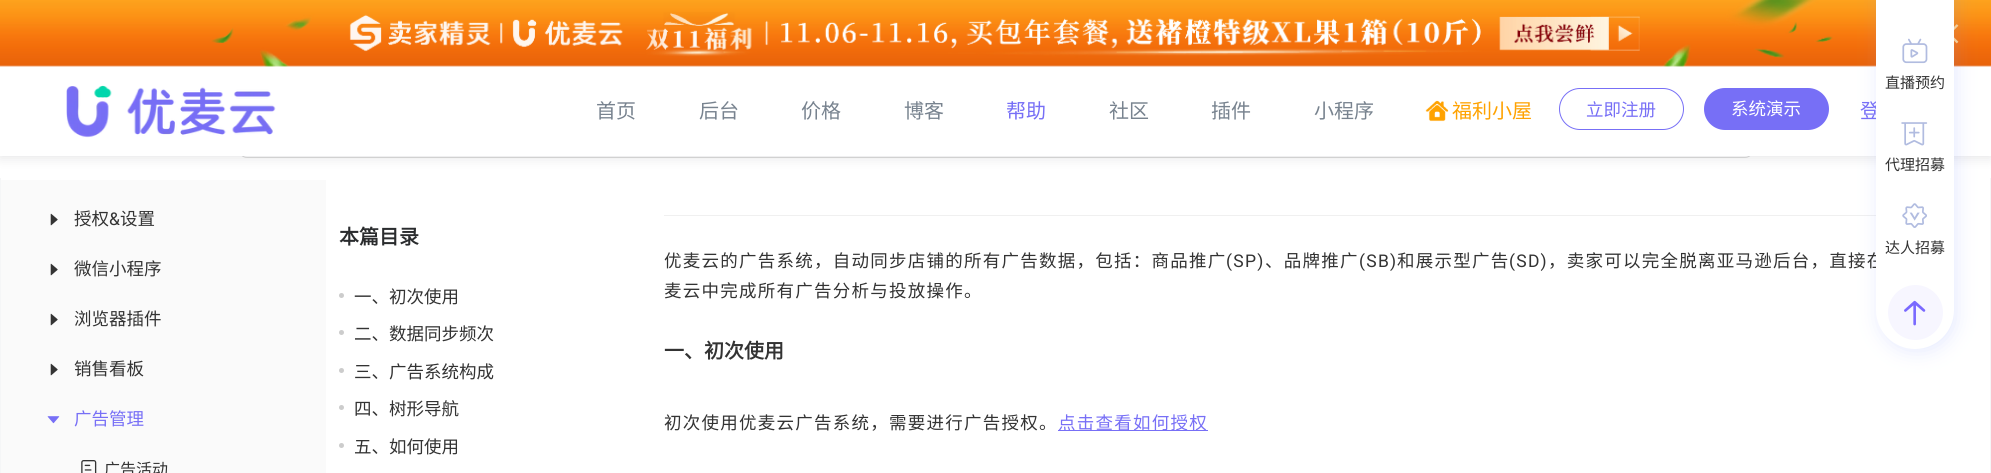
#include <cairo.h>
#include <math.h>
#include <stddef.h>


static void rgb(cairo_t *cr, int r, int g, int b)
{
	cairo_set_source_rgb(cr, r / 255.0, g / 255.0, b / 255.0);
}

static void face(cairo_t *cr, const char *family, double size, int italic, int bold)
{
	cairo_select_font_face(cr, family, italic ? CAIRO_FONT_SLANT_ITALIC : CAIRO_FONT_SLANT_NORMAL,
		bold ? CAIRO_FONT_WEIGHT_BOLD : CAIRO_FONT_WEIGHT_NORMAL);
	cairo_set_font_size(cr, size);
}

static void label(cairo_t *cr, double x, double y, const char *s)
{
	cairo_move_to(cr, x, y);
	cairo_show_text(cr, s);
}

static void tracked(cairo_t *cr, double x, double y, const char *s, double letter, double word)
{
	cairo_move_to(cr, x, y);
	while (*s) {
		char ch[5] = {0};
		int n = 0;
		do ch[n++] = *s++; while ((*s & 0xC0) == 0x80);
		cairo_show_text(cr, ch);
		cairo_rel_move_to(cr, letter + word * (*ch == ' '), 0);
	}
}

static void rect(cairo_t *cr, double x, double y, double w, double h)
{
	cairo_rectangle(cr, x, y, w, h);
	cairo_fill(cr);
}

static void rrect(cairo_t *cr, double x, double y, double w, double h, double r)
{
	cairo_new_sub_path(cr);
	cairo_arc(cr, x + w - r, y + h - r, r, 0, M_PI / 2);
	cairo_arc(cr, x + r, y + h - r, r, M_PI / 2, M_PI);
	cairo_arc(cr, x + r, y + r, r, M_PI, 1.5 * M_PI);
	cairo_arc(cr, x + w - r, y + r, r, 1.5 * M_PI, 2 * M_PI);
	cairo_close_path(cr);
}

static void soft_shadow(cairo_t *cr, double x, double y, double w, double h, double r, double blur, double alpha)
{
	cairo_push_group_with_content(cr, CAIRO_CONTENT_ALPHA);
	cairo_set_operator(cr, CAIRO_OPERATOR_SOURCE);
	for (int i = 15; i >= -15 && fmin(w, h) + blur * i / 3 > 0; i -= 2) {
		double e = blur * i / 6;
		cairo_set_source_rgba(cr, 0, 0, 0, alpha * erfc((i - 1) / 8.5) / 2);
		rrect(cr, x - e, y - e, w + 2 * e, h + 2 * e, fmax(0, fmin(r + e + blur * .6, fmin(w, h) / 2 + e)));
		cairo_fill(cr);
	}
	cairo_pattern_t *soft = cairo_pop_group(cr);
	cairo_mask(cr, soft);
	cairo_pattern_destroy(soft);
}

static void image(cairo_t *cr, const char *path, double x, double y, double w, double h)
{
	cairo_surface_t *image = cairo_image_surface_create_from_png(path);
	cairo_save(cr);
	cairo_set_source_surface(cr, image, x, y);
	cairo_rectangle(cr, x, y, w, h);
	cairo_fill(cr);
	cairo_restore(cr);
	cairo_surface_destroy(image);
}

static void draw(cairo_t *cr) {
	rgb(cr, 255, 255, 255);
	cairo_paint(cr);
	cairo_rectangle(cr, 0.5, 66.5, 1990, 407);
	rgb(cr, 245, 246, 247);
	cairo_set_line_width(cr, 1);
	cairo_stroke(cr);
	rgb(cr, 255, 255, 255);
	rect(cr, 0, 156, 1991, 22);
	rrect(cr, 239.5, 108.5, 1513, 49, 7.5);
	rgb(cr, 217, 217, 217);
	cairo_stroke(cr);
	rgb(cr, 130, 130, 135);
	soft_shadow(cr, 0, 1, 1991, 157, 0, 6, 0.2);
	rgb(cr, 255, 255, 255);
	rect(cr, 0, 66, 1991, 90);
	image(cr, "image0.png", 0, 0, 1991, 67);
	image(cr, "image1.png", 1954, 24, 5, 20);
	image(cr, "image2.png", 66, 85, 210, 53);
	face(cr, "Noto Sans CJK SC", 20, 0, 0);
	rgb(cr, 120, 131, 143);
	label(cr, 596, 118, "首页");
	label(cr, 699, 118, "后台");
	label(cr, 801, 118, "价格");
	label(cr, 904, 118, "博客");
	rgb(cr, 119, 111, 246);
	label(cr, 1006, 118, "帮助");
	rgb(cr, 120, 131, 143);
	label(cr, 1109, 118, "社区");
	label(cr, 1211, 118, "插件");
	label(cr, 1314, 118, "小程序");
	image(cr, "image3.png", 1425, 100, 24, 22);
	rgb(cr, 255, 162, 0);
	label(cr, 1452, 118, "福利小屋");
	rrect(cr, 1559.5, 88.5, 124, 41, 20.5);
	rgb(cr, 119, 111, 246);
	cairo_stroke(cr);
	face(cr, "Noto Sans CJK SC", 17.5, 0, 0);
	label(cr, 1586, 116, "立即注册");
	rrect(cr, 1704, 88, 125, 42, 21);
	cairo_fill(cr);
	rgb(cr, 255, 255, 255);
	label(cr, 1731, 115, "系统演示");
	face(cr, "Noto Sans CJK SC", 20, 0, 0);
	rgb(cr, 119, 111, 246);
	label(cr, 1860, 118, "登");
	rgb(cr, 240, 240, 240);
	rect(cr, 664, 215, 1212, 1);
	rgb(cr, 122, 147, 255);
	soft_shadow(cr, 1879, -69, 77, 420, 38.5, 10, 0.2);
	face(cr, "Noto Sans CJK SC", 17.5, 0, 0);
	rgb(cr, 51, 51, 51);
	tracked(cr, 1548, 267, "，卖家可以完全脱离亚马逊后台，直接在", 1.25, 0);
	rgb(cr, 255, 255, 255);
	rrect(cr, 1876, -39, 78, 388, 39);
	cairo_fill(cr);
	image(cr, "image4.png", 1902, 38, 26, 26);
	face(cr, "Noto Sans CJK SC", 15, 0, 0);
	rgb(cr, 51, 51, 51);
	label(cr, 1885, 88, "直播预约");
	image(cr, "image5.png", 1901, 122, 27, 24);
	label(cr, 1885, 170, "代理招募");
	image(cr, "image6.png", 1902, 203, 25, 25);
	label(cr, 1885, 253, "达人招募");
	rgb(cr, 247, 246, 255);
	cairo_new_path(cr);
	cairo_arc(cr, 1915.5, 312.5, 27.5, 0, 2 * M_PI);
	cairo_fill(cr);
	image(cr, "image7.png", 1904, 300, 22, 26);
	rgb(cr, 250, 250, 250);
	rect(cr, 1, 180, 325, 293);
	image(cr, "image8.png", 50, 213, 8, 13);
	face(cr, "Noto Sans CJK SC", 17.5, 0, 0);
	rgb(cr, 51, 51, 51);
	label(cr, 74, 225, "授权");
	face(cr, "Roboto", 17.5, 0, 0);
	label(cr, 109, 225, "&");
	face(cr, "Noto Sans CJK SC", 17.5, 0, 0);
	label(cr, 120, 225, "设置");
	image(cr, "image8.png", 50, 263, 8, 13);
	label(cr, 74, 275, "微信小程序");
	image(cr, "image8.png", 50, 313, 8, 13);
	label(cr, 74, 325, "浏览器插件");
	image(cr, "image8.png", 50, 363, 8, 13);
	label(cr, 74, 375, "销售看板");
	image(cr, "image9.png", 47, 416, 13, 8);
	rgb(cr, 119, 111, 246);
	label(cr, 74, 425, "广告管理");
	image(cr, "image10.png", 81, 460, 16, 13);
	face(cr, "Noto Sans CJK SC", 16, 0, 0);
	rgb(cr, 51, 51, 51);
	label(cr, 104, 475, "广告活动");
	face(cr, "Noto Sans CJK SC", 20, 0, 1);
	rgb(cr, 42, 44, 46);
	label(cr, 339, 244, "本篇目录");
	rgb(cr, 204, 204, 204);
	cairo_new_path(cr);
	cairo_arc(cr, 341.5, 295.5, 2.5, 0, 2 * M_PI);
	cairo_fill(cr);
	face(cr, "Noto Sans CJK SC", 17.5, 0, 0);
	rgb(cr, 51, 51, 51);
	label(cr, 354, 303, "一、初次使用");
	rgb(cr, 204, 204, 204);
	cairo_new_path(cr);
	cairo_arc(cr, 341.5, 332.5, 2.5, 0, 2 * M_PI);
	cairo_fill(cr);
	rgb(cr, 51, 51, 51);
	label(cr, 354, 340, "二、数据同步频次");
	rgb(cr, 204, 204, 204);
	cairo_new_path(cr);
	cairo_arc(cr, 341.5, 370.5, 2.5, 0, 2 * M_PI);
	cairo_fill(cr);
	rgb(cr, 51, 51, 51);
	label(cr, 354, 378, "三、广告系统构成");
	rgb(cr, 204, 204, 204);
	cairo_new_path(cr);
	cairo_arc(cr, 341.5, 407.5, 2.5, 0, 2 * M_PI);
	cairo_fill(cr);
	rgb(cr, 51, 51, 51);
	label(cr, 354, 415, "四、树形导航");
	rgb(cr, 204, 204, 204);
	cairo_new_path(cr);
	cairo_arc(cr, 341.5, 445.5, 2.5, 0, 2 * M_PI);
	cairo_fill(cr);
	rgb(cr, 51, 51, 51);
	label(cr, 354, 453, "五、如何使用");
	tracked(cr, 664, 267, "优麦云的广告系统，自动同步店铺的所有广告数据，包括：商品推广", 1.25, 0);
	face(cr, "Roboto", 17.5, 0, 0);
	tracked(cr, 1226, 267, "(SP)", 1.25, 0);
	face(cr, "Noto Sans CJK SC", 17.5, 0, 0);
	tracked(cr, 1265, 267, "、品牌推广", 1.25, 0);
	face(cr, "Roboto", 17.5, 0, 0);
	tracked(cr, 1359, 267, "(SB)", 1.25, 0);
	face(cr, "Noto Sans CJK SC", 17.5, 0, 0);
	tracked(cr, 1397, 267, "和展示型广告", 1.25, 0);
	face(cr, "Roboto", 17.5, 0, 0);
	tracked(cr, 1509, 267, "(SD)", 1.25, 0);
	face(cr, "Noto Sans CJK SC", 17.5, 0, 0);
	tracked(cr, 664, 297, "麦云中完成所有广告分析与投放操作。", 1.25, 0);
	face(cr, "Noto Sans CJK SC", 20, 0, 1);
	label(cr, 664, 358, "一、初次使用");
	face(cr, "Noto Sans CJK SC", 17.5, 0, 0);
	tracked(cr, 664, 429, "初次使用优麦云广告系统，需要进行广告授权。", 1.25, 0);
	rgb(cr, 119, 111, 246);
	rect(cr, 1058, 430, 150, 1);
	tracked(cr, 1058, 429, "点击查看如何授权", 1.25, 0);
}

int main(void) {
	cairo_surface_t *surface = cairo_image_surface_create(CAIRO_FORMAT_RGB24, 1991, 473);
	cairo_t *cr = cairo_create(surface);
	cairo_font_options_t *options = cairo_font_options_create();
	cairo_font_options_set_hint_metrics(options, CAIRO_HINT_METRICS_OFF);
	cairo_font_options_set_hint_style(options, CAIRO_HINT_STYLE_NONE);
	cairo_set_font_options(cr, options);
	cairo_set_miter_limit(cr, 4);
	draw(cr);
	cairo_surface_write_to_png(surface, "render.png");
	cairo_font_options_destroy(options);
	cairo_destroy(cr);
	cairo_surface_destroy(surface);
	return 0;
}
